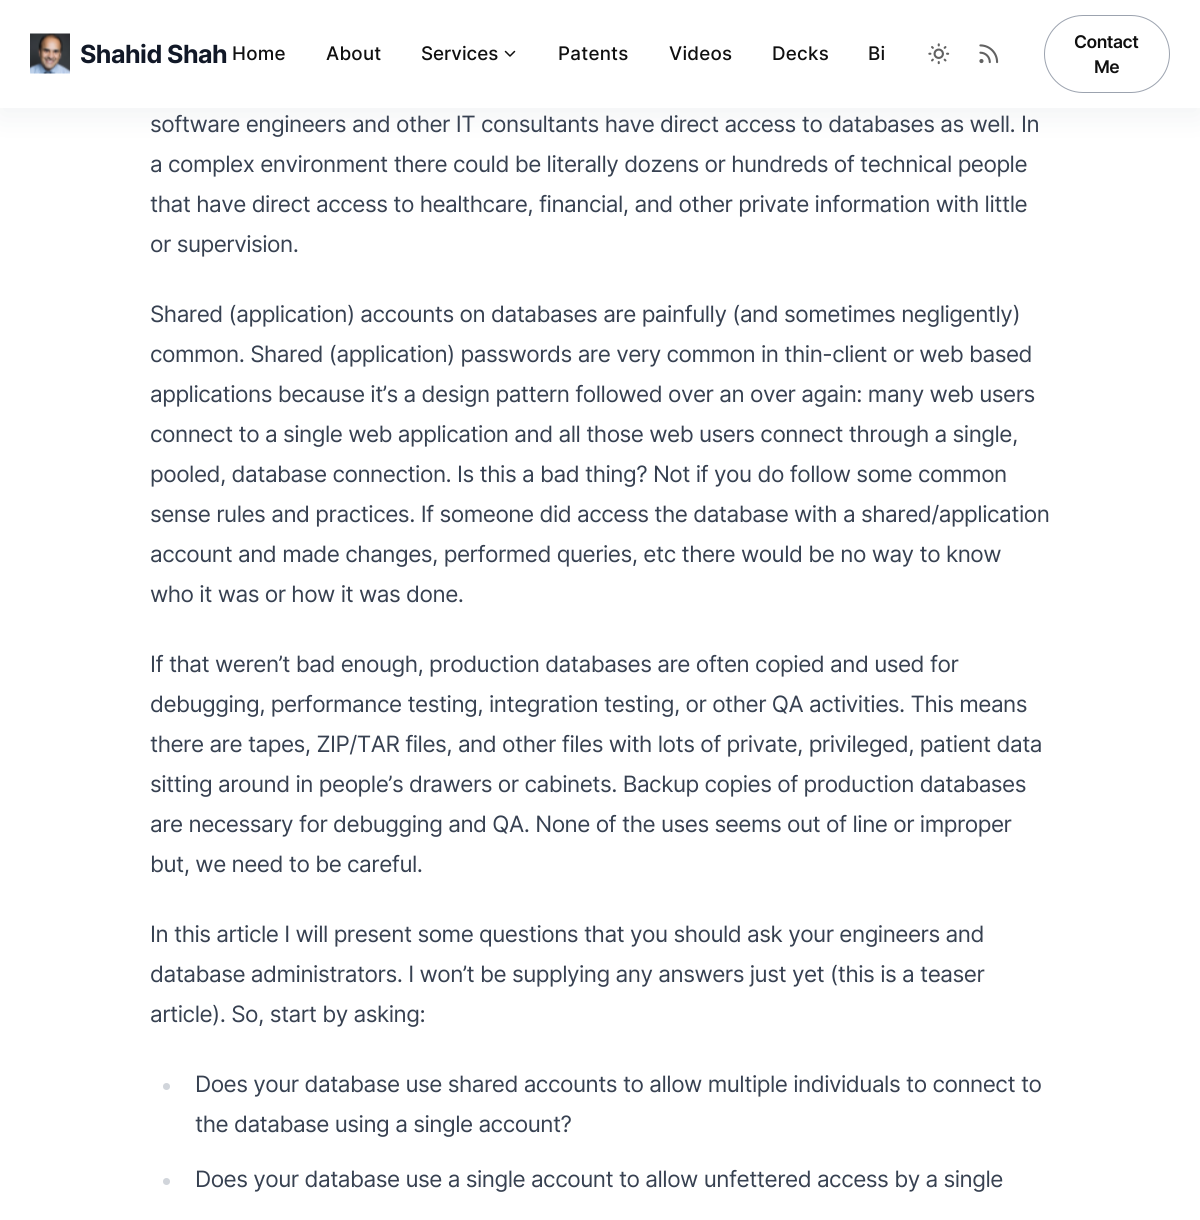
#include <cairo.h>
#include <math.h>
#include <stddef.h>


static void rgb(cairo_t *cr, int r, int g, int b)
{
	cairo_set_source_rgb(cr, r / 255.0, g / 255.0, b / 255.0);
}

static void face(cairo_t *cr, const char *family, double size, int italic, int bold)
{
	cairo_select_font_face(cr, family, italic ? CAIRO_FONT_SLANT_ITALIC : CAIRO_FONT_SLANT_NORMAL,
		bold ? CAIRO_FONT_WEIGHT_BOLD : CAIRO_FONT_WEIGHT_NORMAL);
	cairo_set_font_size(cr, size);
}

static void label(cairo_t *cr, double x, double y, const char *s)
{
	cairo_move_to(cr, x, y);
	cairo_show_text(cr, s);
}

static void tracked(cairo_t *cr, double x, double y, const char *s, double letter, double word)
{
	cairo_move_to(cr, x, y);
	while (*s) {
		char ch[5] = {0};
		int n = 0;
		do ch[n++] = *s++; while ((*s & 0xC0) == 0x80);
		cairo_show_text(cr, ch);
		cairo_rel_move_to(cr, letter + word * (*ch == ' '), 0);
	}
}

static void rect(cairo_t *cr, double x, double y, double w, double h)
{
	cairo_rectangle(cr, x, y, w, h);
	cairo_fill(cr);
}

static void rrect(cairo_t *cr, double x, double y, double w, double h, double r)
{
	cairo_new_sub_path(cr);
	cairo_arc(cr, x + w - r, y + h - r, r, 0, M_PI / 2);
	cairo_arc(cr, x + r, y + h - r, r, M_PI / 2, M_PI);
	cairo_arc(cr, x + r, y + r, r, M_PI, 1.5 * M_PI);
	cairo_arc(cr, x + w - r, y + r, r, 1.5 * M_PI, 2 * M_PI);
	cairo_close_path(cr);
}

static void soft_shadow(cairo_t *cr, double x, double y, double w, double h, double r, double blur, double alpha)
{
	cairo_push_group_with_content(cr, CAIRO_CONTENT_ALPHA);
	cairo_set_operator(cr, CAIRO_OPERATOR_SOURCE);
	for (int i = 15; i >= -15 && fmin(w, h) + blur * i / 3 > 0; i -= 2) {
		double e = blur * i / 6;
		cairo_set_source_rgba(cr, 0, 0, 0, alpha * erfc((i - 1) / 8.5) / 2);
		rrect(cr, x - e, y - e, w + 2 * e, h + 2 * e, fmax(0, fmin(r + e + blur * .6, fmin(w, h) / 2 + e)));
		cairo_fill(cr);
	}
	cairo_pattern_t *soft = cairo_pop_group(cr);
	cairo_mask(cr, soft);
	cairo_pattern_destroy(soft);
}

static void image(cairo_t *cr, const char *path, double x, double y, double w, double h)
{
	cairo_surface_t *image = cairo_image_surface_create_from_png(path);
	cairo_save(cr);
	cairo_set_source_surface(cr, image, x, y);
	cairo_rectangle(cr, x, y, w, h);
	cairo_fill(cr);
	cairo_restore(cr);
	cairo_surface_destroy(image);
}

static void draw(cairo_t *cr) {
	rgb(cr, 255, 255, 255);
	cairo_paint(cr);
	cairo_save(cr);
	cairo_set_fill_rule(cr, CAIRO_FILL_RULE_EVEN_ODD);
	cairo_new_path(cr);
	cairo_move_to(cr, 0, 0);
	cairo_line_to(cr, 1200, 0);
	cairo_line_to(cr, 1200, 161);
	cairo_line_to(cr, 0, 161);
	cairo_close_path(cr);
	cairo_move_to(cr, 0, 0);
	cairo_line_to(cr, 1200, 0);
	cairo_line_to(cr, 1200, 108);
	cairo_line_to(cr, 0, 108);
	cairo_close_path(cr);
	cairo_clip(cr);
	rgb(cr, 140, 152, 164);
	soft_shadow(cr, 0, 8, 1200, 107, 0, 15, 0.13);
	cairo_restore(cr);
	cairo_set_source_rgba(cr, 1, 1, 1, 0.9);
	rect(cr, 2, 107, 1196, 1);
	image(cr, "image0.png", 30, 33, 40, 41);
	face(cr, "Inter", 25, 0, 1);
	rgb(cr, 17, 24, 39);
	tracked(cr, 80, 63, "Shahid Shah", -0.5, 0);
	face(cr, "Inter Medium", 18.75, 0, 0);
	rgb(cr, 16, 16, 16);
	tracked(cr, 232, 60, "Home", 0.25, 0);
	tracked(cr, 326, 60, "About", 0.25, 0);
	label(cr, 421, 60, "Services");
	cairo_new_path(cr);
	cairo_move_to(cr, 505.5, 51.5);
	cairo_line_to(cr, 510, 56);
	cairo_line_to(cr, 514.5, 51.5);
	cairo_set_line_width(cr, 1.5);
	cairo_set_line_cap(cr, CAIRO_LINE_CAP_ROUND);
	cairo_set_line_join(cr, CAIRO_LINE_JOIN_ROUND);
	cairo_stroke(cr);
	tracked(cr, 558, 60, "Patents", 0.25, 0);
	tracked(cr, 669, 60, "Videos", 0.25, 0);
	tracked(cr, 772, 60, "Decks", 0.25, 0);
	tracked(cr, 868, 60, "Bi", 0.25, 0);
	image(cr, "image1.png", 928, 43, 22, 22);
	image(cr, "image2.png", 979, 44, 20, 20);
	rrect(cr, 1044.5, 15.5, 125, 77, 38.5);
	rgb(cr, 156, 163, 175);
	cairo_set_line_width(cr, 1);
	cairo_set_line_cap(cr, CAIRO_LINE_CAP_BUTT);
	cairo_set_line_join(cr, CAIRO_LINE_JOIN_MITER);
	cairo_stroke(cr);
	face(cr, "Inter SemiBold", 17.5, 0, 0);
	rgb(cr, 16, 16, 16);
	tracked(cr, 1074, 48, "Contact", -0.5, 0);
	tracked(cr, 1094, 73, "Me", -0.5, 0);
	face(cr, "Inter", 22.5, 0, 0);
	rgb(cr, 55, 65, 81);
	tracked(cr, 150, 132, "software engineers and other IT consultants have direct access to databases as well. In", -0.5, 0);
	tracked(cr, 150, 172, "a complex environment there could be literally dozens or hundreds of technical people", -0.5, 0);
	tracked(cr, 150, 212, "that have direct access to healthcare, financial, and other private information with little", -0.5, 0);
	tracked(cr, 150, 252, "or supervision.", -0.5, 0);
	tracked(cr, 150, 322, "Shared (application) accounts on databases are painfully (and sometimes negligently)", -0.5, 0);
	tracked(cr, 150, 362, "common. Shared (application) passwords are very common in thin-client or web based", -0.5, 0);
	tracked(cr, 150, 402, "applications because it’s a design pattern followed over an over again: many web users", -0.5, 0);
	tracked(cr, 150, 442, "connect to a single web application and all those web users connect through a single,", -0.5, 0);
	tracked(cr, 150, 482, "pooled, database connection. Is this a bad thing? Not if you do follow some common", -0.5, 0);
	tracked(cr, 150, 522, "sense rules and practices. If someone did access the database with a shared/application", -0.5, 0);
	tracked(cr, 150, 562, "account and made changes, performed queries, etc there would be no way to know", -0.5, 0);
	tracked(cr, 150, 602, "who it was or how it was done.", -0.5, 0);
	tracked(cr, 150, 672, "If that weren’t bad enough, production databases are often copied and used for", -0.5, 0);
	tracked(cr, 150, 712, "debugging, performance testing, integration testing, or other QA activities. This means", -0.5, 0);
	tracked(cr, 150, 752, "there are tapes, ZIP/TAR files, and other files with lots of private, privileged, patient data", -0.5, 0);
	tracked(cr, 150, 792, "sitting around in people’s drawers or cabinets. Backup copies of production databases", -0.5, 0);
	tracked(cr, 150, 832, "are necessary for debugging and QA. None of the uses seems out of line or improper", -0.5, 0);
	tracked(cr, 150, 872, "but, we need to be careful.", -0.5, 0);
	tracked(cr, 150, 942, "In this article I will present some questions that you should ask your engineers and", -0.5, 0);
	tracked(cr, 150, 982, "database administrators. I won’t be supplying any answers just yet (this is a teaser", -0.5, 0);
	tracked(cr, 150, 1022, "article). So, start by asking:", -0.5, 0);
	rgb(cr, 209, 213, 219);
	cairo_new_path(cr);
	cairo_arc(cr, 166.5, 1086.5, 3.5, 0, 2 * M_PI);
	cairo_fill(cr);
	rgb(cr, 55, 65, 81);
	tracked(cr, 195, 1092, "Does your database use shared accounts to allow multiple individuals to connect to", -0.5, 0);
	tracked(cr, 195, 1132, "the database using a single account?", -0.5, 0);
	rgb(cr, 209, 213, 219);
	cairo_new_path(cr);
	cairo_arc(cr, 166.5, 1181.5, 3.5, 0, 2 * M_PI);
	cairo_fill(cr);
	rgb(cr, 55, 65, 81);
	tracked(cr, 195, 1187, "Does your database use a single account to allow unfettered access by a single", -0.5, 0);
}

int main(void) {
	cairo_surface_t *surface = cairo_image_surface_create(CAIRO_FORMAT_RGB24, 1200, 1220);
	cairo_t *cr = cairo_create(surface);
	cairo_font_options_t *options = cairo_font_options_create();
	cairo_font_options_set_hint_metrics(options, CAIRO_HINT_METRICS_OFF);
	cairo_font_options_set_hint_style(options, CAIRO_HINT_STYLE_NONE);
	cairo_set_font_options(cr, options);
	cairo_set_miter_limit(cr, 4);
	draw(cr);
	cairo_surface_write_to_png(surface, "render.png");
	cairo_font_options_destroy(options);
	cairo_destroy(cr);
	cairo_surface_destroy(surface);
	return 0;
}
